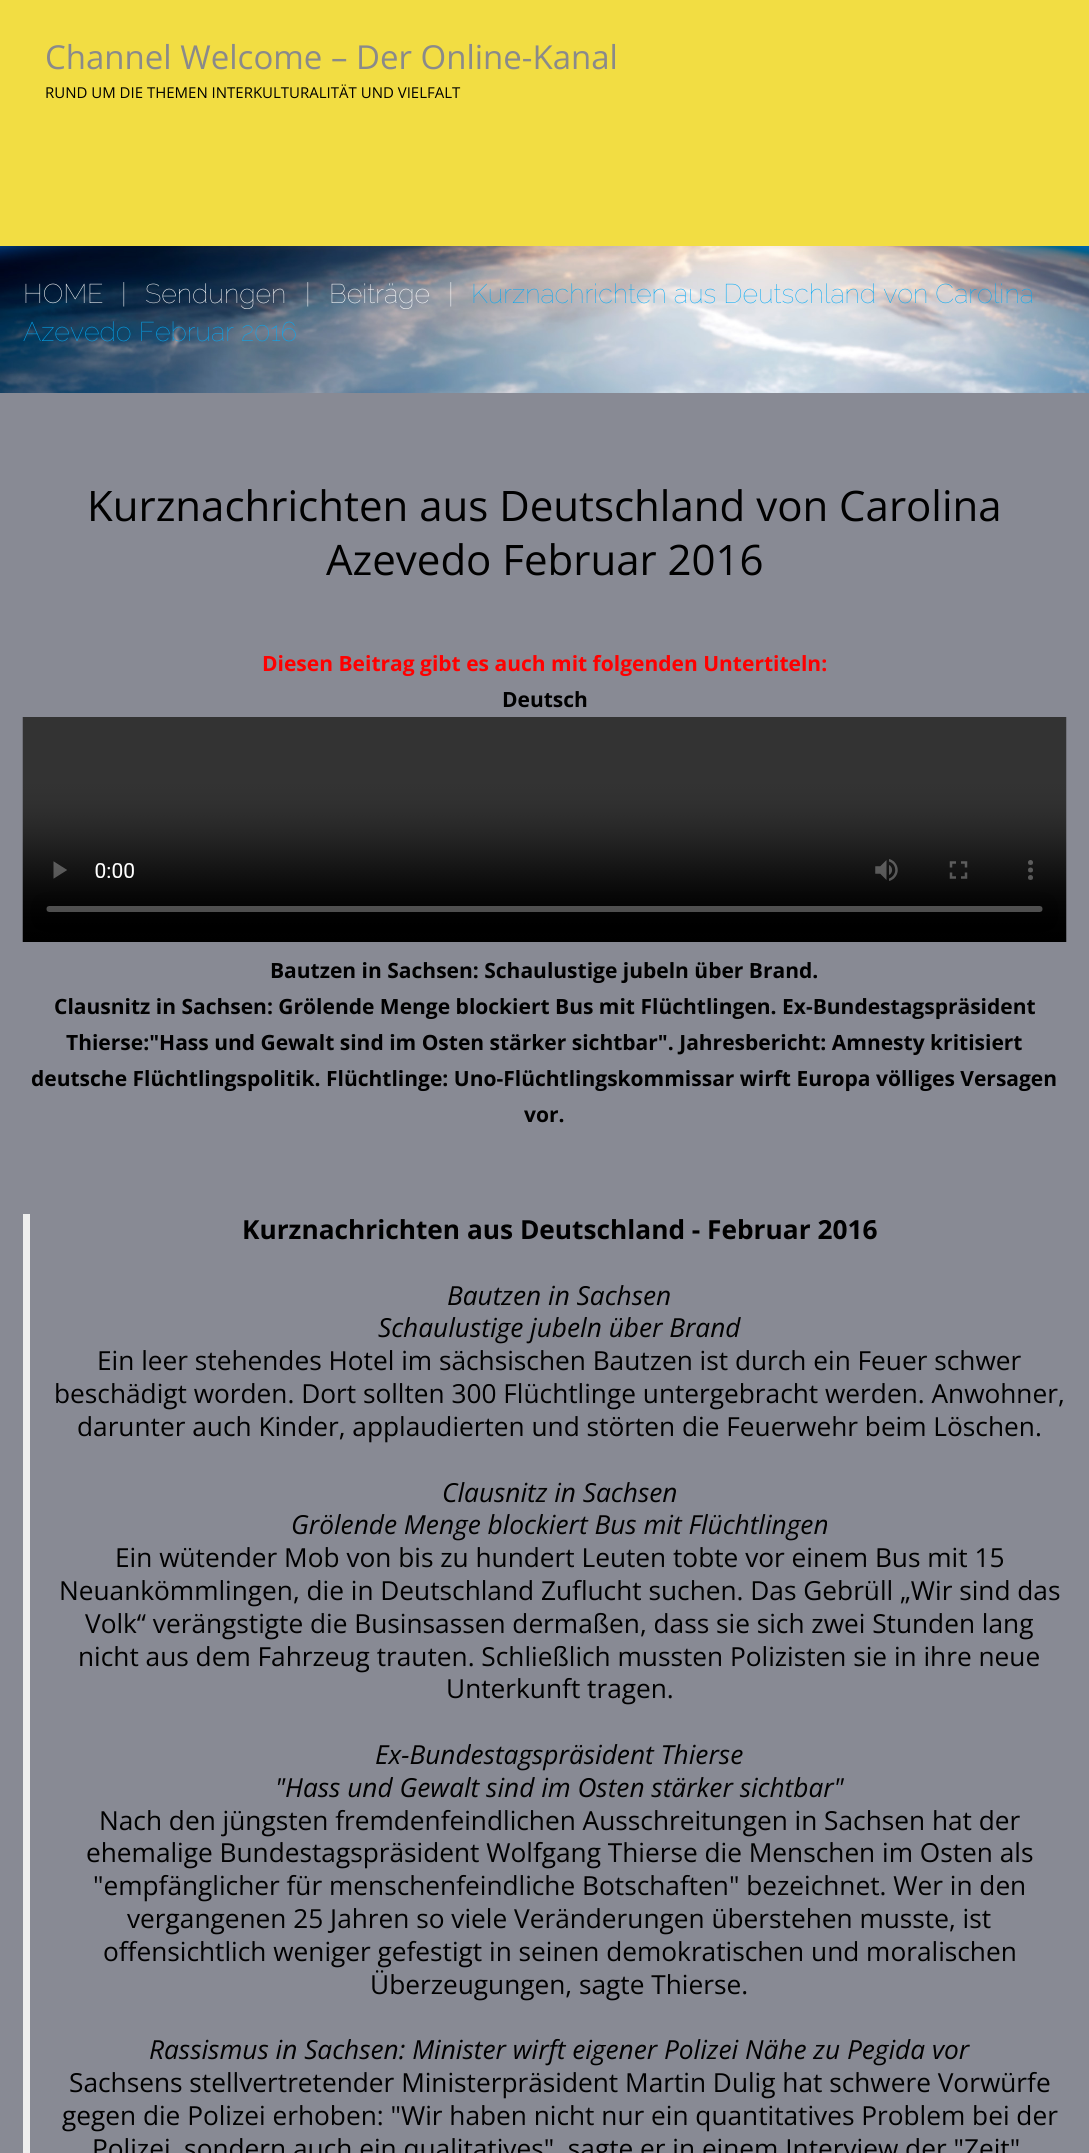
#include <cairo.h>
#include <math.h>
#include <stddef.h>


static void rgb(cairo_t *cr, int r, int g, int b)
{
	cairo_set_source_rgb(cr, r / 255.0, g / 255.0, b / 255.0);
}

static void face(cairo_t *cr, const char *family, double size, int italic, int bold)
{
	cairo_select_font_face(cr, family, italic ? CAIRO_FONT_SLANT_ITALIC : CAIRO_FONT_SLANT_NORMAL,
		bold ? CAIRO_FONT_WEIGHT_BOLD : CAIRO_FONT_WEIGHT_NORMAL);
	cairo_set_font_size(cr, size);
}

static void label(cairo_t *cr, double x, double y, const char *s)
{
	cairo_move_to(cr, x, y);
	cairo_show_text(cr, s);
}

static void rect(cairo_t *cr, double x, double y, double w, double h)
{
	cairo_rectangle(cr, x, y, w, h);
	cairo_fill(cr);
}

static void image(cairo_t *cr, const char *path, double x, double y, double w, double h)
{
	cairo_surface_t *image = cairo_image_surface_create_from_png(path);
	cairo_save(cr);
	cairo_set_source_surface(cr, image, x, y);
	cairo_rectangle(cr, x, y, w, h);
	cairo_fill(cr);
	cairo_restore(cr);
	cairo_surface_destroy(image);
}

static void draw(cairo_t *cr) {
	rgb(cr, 136, 138, 148);
	cairo_paint(cr);
	rgb(cr, 242, 221, 67);
	rect(cr, 0, 0, 1089, 246);
	face(cr, "Open Sans", 33, 0, 0);
	rgb(cr, 138, 138, 138);
	label(cr, 45, 69, "Channel Welcome – Der Online-Kanal");
	face(cr, "Open Sans", 15, 0, 0);
	rgb(cr, 0, 0, 0);
	label(cr, 45, 98, "RUND UM DIE THEMEN INTERKULTURALITÄT UND VIELFALT");
	image(cr, "image0.png", 0, 246, 1089, 147);
	face(cr, "Raleway Thin", 27, 0, 0);
	rgb(cr, 255, 255, 255);
	label(cr, 23, 303, "HOME");
	label(cr, 121, 303, "|");
	label(cr, 145, 303, "Sendungen");
	label(cr, 305, 303, "|");
	label(cr, 329, 303, "Beiträge");
	label(cr, 448, 303, "|");
	rgb(cr, 3, 169, 244);
	label(cr, 471, 303, "Kurznachrichten aus Deutschland von Carolina");
	label(cr, 23, 341, "Azevedo Februar 2016");
	face(cr, "Open Sans", 42, 0, 0);
	rgb(cr, 0, 0, 0);
	label(cr, 87, 521, "Kurznachrichten aus Deutschland von Carolina");
	label(cr, 326, 575, "Azevedo Februar 2016");
	face(cr, "Open Sans", 21, 0, 1);
	rgb(cr, 255, 0, 0);
	label(cr, 262, 671, "Diesen Beitrag gibt es auch mit folgenden Untertiteln:");
	rgb(cr, 0, 0, 0);
	label(cr, 502, 707, "Deutsch");
	image(cr, "image1.png", 22, 717, 1045, 225);
	label(cr, 270, 978, "Bautzen in Sachsen: Schaulustige jubeln über Brand.");
	label(cr, 54, 1014, "Clausnitz in Sachsen: Grölende Menge blockiert Bus mit Flüchtlingen. Ex-Bundestagspräsident");
	label(cr, 66, 1050, "Thierse:\"Hass und Gewalt sind im Osten stärker sichtbar\". Jahresbericht: Amnesty kritisiert");
	label(cr, 31, 1086, "deutsche Flüchtlingspolitik. Flüchtlinge: Uno-Flüchtlingskommissar wirft Europa völliges Versagen");
	label(cr, 524, 1122, "vor.");
	rgb(cr, 238, 238, 238);
	rect(cr, 23, 1214, 7, 939);
	face(cr, "Open Sans", 26.25, 0, 1);
	rgb(cr, 0, 0, 0);
	label(cr, 242, 1239, "Kurznachrichten aus Deutschland - Februar 2016");
	face(cr, "Open Sans", 26.25, 1, 0);
	label(cr, 447, 1305, "Bautzen in Sachsen");
	label(cr, 378, 1337, "Schaulustige jubeln über Brand");
	face(cr, "Open Sans", 26.25, 0, 0);
	label(cr, 97, 1370, "Ein leer stehendes Hotel im sächsischen Bautzen ist durch ein Feuer schwer");
	label(cr, 54, 1403, "beschädigt worden. Dort sollten 300 Flüchtlinge untergebracht werden. Anwohner,");
	label(cr, 77, 1436, "darunter auch Kinder, applaudierten und störten die Feuerwehr beim Löschen.");
	face(cr, "Open Sans", 26.25, 1, 0);
	label(cr, 442, 1502, "Clausnitz in Sachsen");
	label(cr, 291, 1534, "Grölende Menge blockiert Bus mit Flüchtlingen");
	face(cr, "Open Sans", 26.25, 0, 0);
	label(cr, 115, 1567, "Ein wütender Mob von bis zu hundert Leuten tobte vor einem Bus mit 15");
	label(cr, 59, 1600, "Neuankömmlingen, die in Deutschland Zuflucht suchen. Das Gebrüll „Wir sind das");
	label(cr, 85, 1633, "Volk“ verängstigte die Businsassen dermaßen, dass sie sich zwei Stunden lang");
	label(cr, 78, 1666, "nicht aus dem Fahrzeug trauten. Schließlich mussten Polizisten sie in ihre neue");
	label(cr, 446, 1698, "Unterkunft tragen.");
	face(cr, "Open Sans", 26.25, 1, 0);
	label(cr, 375, 1764, "Ex-Bundestagspräsident Thierse");
	label(cr, 275, 1797, "\"Hass und Gewalt sind im Osten stärker sichtbar\"");
	face(cr, "Open Sans", 26.25, 0, 0);
	label(cr, 99, 1830, "Nach den jüngsten fremdenfeindlichen Ausschreitungen in Sachsen hat der");
	label(cr, 86, 1862, "ehemalige Bundestagspräsident Wolfgang Thierse die Menschen im Osten als");
	label(cr, 93, 1895, "\"empfänglicher für menschenfeindliche Botschaften\" bezeichnet. Wer in den");
	label(cr, 127, 1928, "vergangenen 25 Jahren so viele Veränderungen überstehen musste, ist");
	label(cr, 103, 1961, "offensichtlich weniger gefestigt in seinen demokratischen und moralischen");
	label(cr, 370, 1994, "Überzeugungen, sagte Thierse.");
	face(cr, "Open Sans", 26.25, 1, 0);
	label(cr, 149, 2059, "Rassismus in Sachsen: Minister wirft eigener Polizei Nähe zu Pegida vor");
	face(cr, "Open Sans", 26.25, 0, 0);
	label(cr, 69, 2092, "Sachsens stellvertretender Ministerpräsident Martin Dulig hat schwere Vorwürfe");
	label(cr, 62, 2125, "gegen die Polizei erhoben: \"Wir haben nicht nur ein quantitatives Problem bei der");
	label(cr, 92, 2158, "Polizei, sondern auch ein qualitatives\", sagte er in einem Interview der \"Zeit\"");
}

int main(void) {
	cairo_surface_t *surface = cairo_image_surface_create(CAIRO_FORMAT_RGB24, 1089, 2153);
	cairo_t *cr = cairo_create(surface);
	cairo_font_options_t *options = cairo_font_options_create();
	cairo_font_options_set_hint_metrics(options, CAIRO_HINT_METRICS_OFF);
	cairo_font_options_set_hint_style(options, CAIRO_HINT_STYLE_NONE);
	cairo_set_font_options(cr, options);
	cairo_set_miter_limit(cr, 4);
	draw(cr);
	cairo_surface_write_to_png(surface, "render.png");
	cairo_font_options_destroy(options);
	cairo_destroy(cr);
	cairo_surface_destroy(surface);
	return 0;
}
